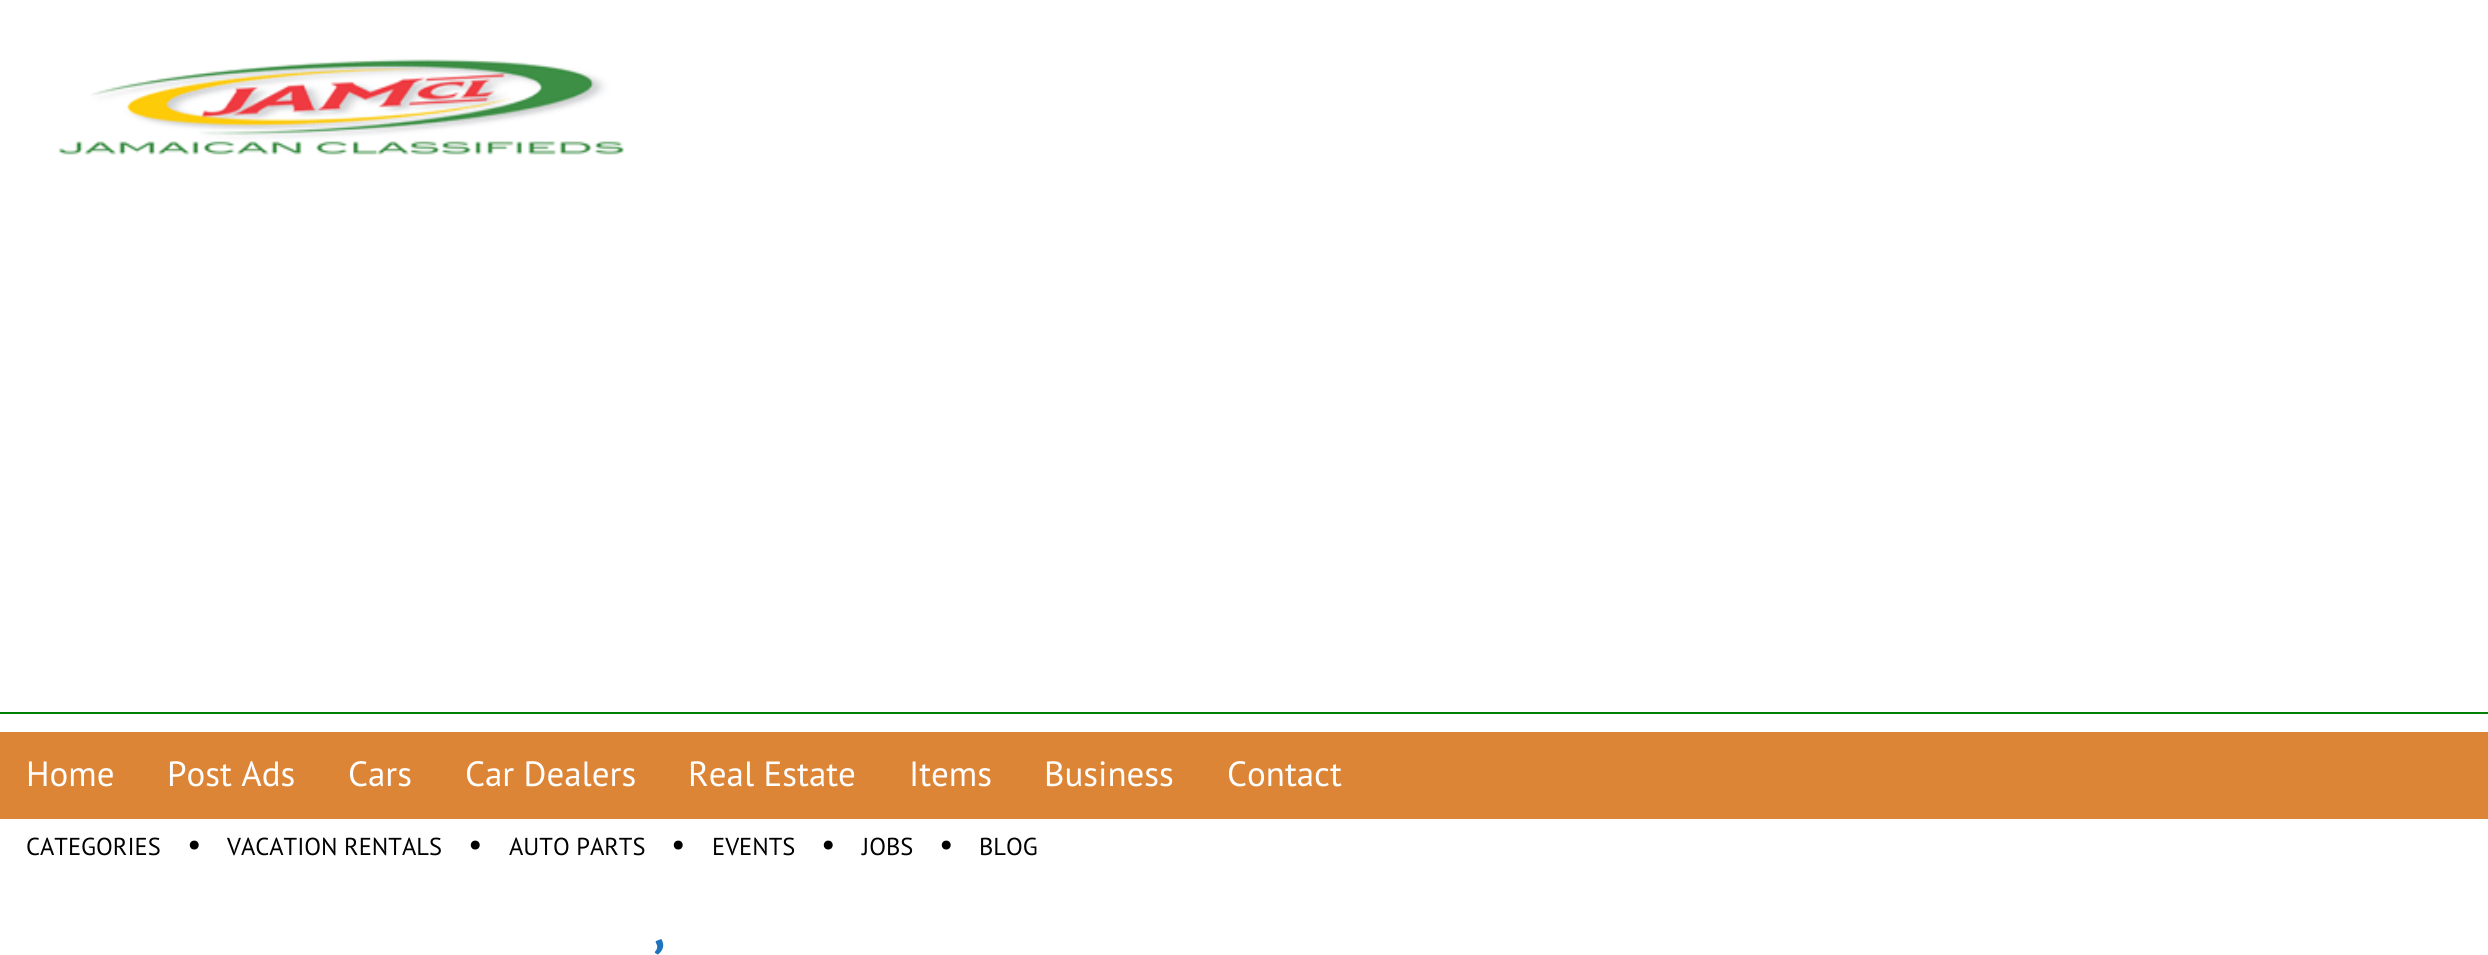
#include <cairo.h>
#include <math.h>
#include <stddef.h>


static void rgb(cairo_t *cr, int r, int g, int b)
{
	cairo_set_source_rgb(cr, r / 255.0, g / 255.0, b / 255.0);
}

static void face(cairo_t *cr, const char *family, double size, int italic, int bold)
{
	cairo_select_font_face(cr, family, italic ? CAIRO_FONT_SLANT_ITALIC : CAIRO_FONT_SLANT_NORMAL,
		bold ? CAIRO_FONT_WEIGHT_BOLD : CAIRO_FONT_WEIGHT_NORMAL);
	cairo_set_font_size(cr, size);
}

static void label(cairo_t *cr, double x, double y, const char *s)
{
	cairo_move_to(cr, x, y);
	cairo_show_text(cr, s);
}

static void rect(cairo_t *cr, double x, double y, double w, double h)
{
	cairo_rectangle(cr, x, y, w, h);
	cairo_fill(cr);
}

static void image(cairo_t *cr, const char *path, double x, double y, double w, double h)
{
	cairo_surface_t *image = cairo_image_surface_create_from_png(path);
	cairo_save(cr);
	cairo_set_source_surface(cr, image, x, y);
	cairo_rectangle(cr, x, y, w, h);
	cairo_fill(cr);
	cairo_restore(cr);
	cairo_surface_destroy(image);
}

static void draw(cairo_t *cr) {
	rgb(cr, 255, 255, 255);
	cairo_paint(cr);
	image(cr, "image0.png", 58, 59, 567, 96);
	rgb(cr, 0, 128, 0);
	rect(cr, 0, 712, 2488, 2);
	rgb(cr, 221, 133, 55);
	rect(cr, 0, 732, 2488, 87);
	face(cr, "PT Sans", 35, 0, 0);
	rgb(cr, 255, 255, 255);
	label(cr, 26, 786, "Home");
	label(cr, 167, 786, "Post Ads");
	label(cr, 348, 786, "Cars");
	label(cr, 465, 786, "Car Dealers");
	label(cr, 688, 786, "Real Estate");
	label(cr, 909, 786, "Items");
	label(cr, 1044, 786, "Business");
	label(cr, 1227, 786, "Contact");
	face(cr, "PT Sans", 24.5, 0, 0);
	rgb(cr, 0, 0, 0);
	label(cr, 26, 855, "CATEGORIES");
	face(cr, "PT Sans", 32, 0, 0);
	label(cr, 187, 855, "•");
	face(cr, "PT Sans", 24.5, 0, 0);
	label(cr, 227, 855, "VACATION RENTALS");
	face(cr, "PT Sans", 32, 0, 0);
	label(cr, 468, 855, "•");
	face(cr, "PT Sans", 24.5, 0, 0);
	label(cr, 509, 855, "AUTO PARTS");
	face(cr, "PT Sans", 32, 0, 0);
	label(cr, 671, 855, "•");
	face(cr, "PT Sans", 24.5, 0, 0);
	label(cr, 712, 855, "EVENTS");
	face(cr, "PT Sans", 32, 0, 0);
	label(cr, 821, 855, "•");
	face(cr, "PT Sans", 24.5, 0, 0);
	label(cr, 862, 855, "JOBS");
	face(cr, "PT Sans", 32, 0, 0);
	label(cr, 939, 855, "•");
	face(cr, "PT Sans", 24.5, 0, 0);
	label(cr, 979, 855, "BLOG");
	face(cr, "Lato Black", 49, 0, 0);
	rgb(cr, 30, 115, 190);
	label(cr, 653, 977, "’");
}

int main(void) {
	cairo_surface_t *surface = cairo_image_surface_create(CAIRO_FORMAT_RGB24, 2488, 955);
	cairo_t *cr = cairo_create(surface);
	cairo_font_options_t *options = cairo_font_options_create();
	cairo_font_options_set_hint_metrics(options, CAIRO_HINT_METRICS_OFF);
	cairo_font_options_set_hint_style(options, CAIRO_HINT_STYLE_NONE);
	cairo_set_font_options(cr, options);
	cairo_set_miter_limit(cr, 4);
	draw(cr);
	cairo_surface_write_to_png(surface, "render.png");
	cairo_font_options_destroy(options);
	cairo_destroy(cr);
	cairo_surface_destroy(surface);
	return 0;
}
